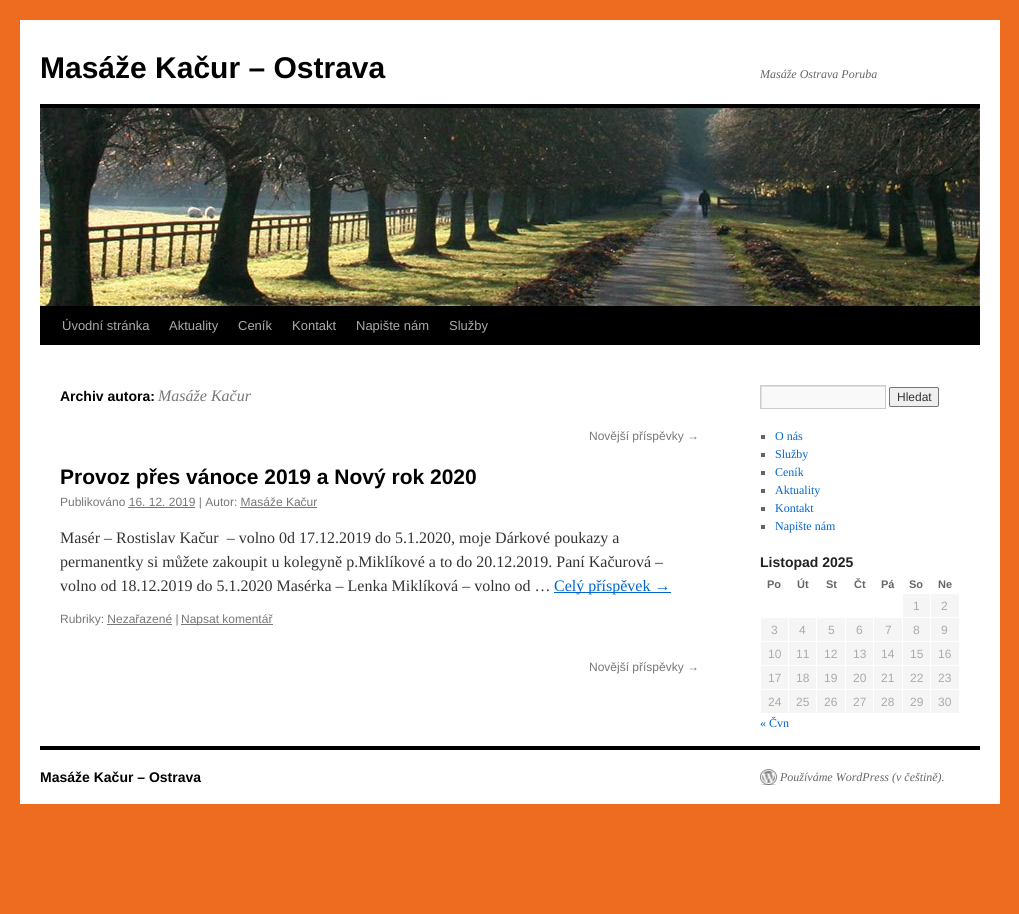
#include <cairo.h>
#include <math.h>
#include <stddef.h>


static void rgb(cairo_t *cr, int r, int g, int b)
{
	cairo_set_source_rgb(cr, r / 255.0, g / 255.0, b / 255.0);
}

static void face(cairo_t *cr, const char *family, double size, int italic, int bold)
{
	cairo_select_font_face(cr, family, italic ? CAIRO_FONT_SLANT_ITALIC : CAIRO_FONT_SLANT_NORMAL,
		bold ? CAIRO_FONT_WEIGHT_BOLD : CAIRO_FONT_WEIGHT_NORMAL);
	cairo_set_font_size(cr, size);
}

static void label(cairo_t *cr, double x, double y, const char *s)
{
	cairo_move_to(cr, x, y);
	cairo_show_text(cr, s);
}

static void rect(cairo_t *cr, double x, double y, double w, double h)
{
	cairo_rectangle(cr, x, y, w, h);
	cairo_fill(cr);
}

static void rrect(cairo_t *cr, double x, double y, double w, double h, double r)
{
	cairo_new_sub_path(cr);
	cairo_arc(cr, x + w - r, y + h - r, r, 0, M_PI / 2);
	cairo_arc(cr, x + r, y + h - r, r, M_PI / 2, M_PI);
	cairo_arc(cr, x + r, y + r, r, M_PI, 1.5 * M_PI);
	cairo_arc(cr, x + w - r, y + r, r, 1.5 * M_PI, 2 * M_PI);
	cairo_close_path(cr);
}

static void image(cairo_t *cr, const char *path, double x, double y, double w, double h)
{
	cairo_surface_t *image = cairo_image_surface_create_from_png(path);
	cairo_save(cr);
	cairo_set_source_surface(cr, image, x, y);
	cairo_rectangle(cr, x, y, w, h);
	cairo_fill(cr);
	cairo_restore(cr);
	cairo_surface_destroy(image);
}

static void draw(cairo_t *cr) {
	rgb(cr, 238, 108, 32);
	cairo_paint(cr);
	rgb(cr, 255, 255, 255);
	rect(cr, 20, 20, 980, 784);
	face(cr, "Liberation Sans", 30, 0, 1);
	rgb(cr, 0, 0, 0);
	label(cr, 40, 78, "Masáže Kačur – Ostrava");
	face(cr, "Liberation Serif", 12, 1, 0);
	rgb(cr, 102, 102, 102);
	label(cr, 760, 78, "Masáže Ostrava Poruba");
	rgb(cr, 0, 0, 0);
	rect(cr, 40, 104, 940, 4);
	rect(cr, 40, 306, 940, 39);
	image(cr, "image0.png", 40, 108, 940, 198);
	face(cr, "Liberation Sans", 13, 0, 0);
	rgb(cr, 170, 170, 170);
	label(cr, 62, 330, "Úvodní stránka");
	label(cr, 169, 330, "Aktuality");
	label(cr, 238, 330, "Ceník");
	label(cr, 292, 330, "Kontakt");
	label(cr, 356, 330, "Napište nám");
	label(cr, 449, 330, "Služby");
	face(cr, "Liberation Sans", 14, 0, 1);
	rgb(cr, 0, 0, 0);
	label(cr, 60, 401, "Archiv autora:");
	face(cr, "Liberation Serif", 16, 1, 0);
	rgb(cr, 119, 119, 119);
	label(cr, 158, 401, "Masáže Kačur");
	face(cr, "Liberation Sans", 12, 0, 0);
	label(cr, 589, 440, "Novější příspěvky →");
	face(cr, "Liberation Sans", 21, 0, 1);
	rgb(cr, 0, 0, 0);
	label(cr, 60, 484, "Provoz přes vánoce 2019 a Nový rok 2020");
	face(cr, "Liberation Sans", 12, 0, 0);
	rgb(cr, 119, 119, 119);
	label(cr, 60, 506, "Publikováno 16. 12. 2019 | Autor: Masáže Kačur");
	rect(cr, 128, 507, 67, 1);
	rect(cr, 240, 507, 77, 1);
	face(cr, "Liberation Serif", 16, 0, 0);
	rgb(cr, 51, 51, 51);
	label(cr, 60, 543, "Masér – Rostislav Kačur  – volno 0d 17.12.2019 do 5.1.2020, moje Dárkové poukazy a");
	label(cr, 60, 567, "permanentky si můžete zakoupit u kolegyně p.Miklíkové a to do 20.12.2019. Paní Kačurová –");
	label(cr, 60, 591, "volno od 18.12.2019 do 5.1.2020 Masérka – Lenka Miklíková – volno od …");
	rgb(cr, 0, 102, 204);
	rect(cr, 554, 592, 117, 1);
	label(cr, 554, 591, "Celý příspěvek →");
	face(cr, "Liberation Sans", 12, 0, 0);
	rgb(cr, 119, 119, 119);
	label(cr, 60, 623, "Rubriky: Nezařazené |");
	rect(cr, 107, 624, 65, 1);
	rect(cr, 181, 624, 92, 1);
	label(cr, 181, 623, "Napsat komentář");
	label(cr, 589, 671, "Novější příspěvky →");
	rgb(cr, 249, 249, 249);
	rect(cr, 762, 387, 123, 21);
	cairo_save(cr);
	cairo_rectangle(cr, 761, 386, 124, 22);
	cairo_clip(cr);
	rgb(cr, 224, 224, 224);
	cairo_set_fill_rule(cr, CAIRO_FILL_RULE_EVEN_ODD);
	cairo_new_path(cr);
	cairo_move_to(cr, 662, 287);
	cairo_line_to(cr, 984, 287);
	cairo_line_to(cr, 984, 507);
	cairo_line_to(cr, 662, 507);
	cairo_close_path(cr);
	cairo_move_to(cr, 762, 387);
	cairo_line_to(cr, 886, 387);
	cairo_line_to(cr, 886, 409);
	cairo_line_to(cr, 762, 409);
	cairo_close_path(cr);
	cairo_fill(cr);
	cairo_restore(cr);
	cairo_rectangle(cr, 760.5, 385.5, 125, 23);
	rgb(cr, 204, 204, 204);
	cairo_set_line_width(cr, 1);
	cairo_stroke(cr);
	rgb(cr, 239, 239, 239);
	rrect(cr, 889.5, 387.5, 49, 19, 1.5);
	cairo_fill_preserve(cr);
	rgb(cr, 118, 118, 118);
	cairo_stroke(cr);
	rgb(cr, 51, 51, 51);
	label(cr, 897, 401, "Hledat");
	rgb(cr, 102, 102, 102);
	rect(cr, 761, 435, 4, 4);
	face(cr, "Liberation Serif", 12, 0, 0);
	rgb(cr, 0, 102, 204);
	label(cr, 775, 440, "O nás");
	rgb(cr, 102, 102, 102);
	rect(cr, 761, 453, 4, 4);
	rgb(cr, 0, 102, 204);
	label(cr, 775, 458, "Služby");
	rgb(cr, 102, 102, 102);
	rect(cr, 761, 471, 4, 4);
	rgb(cr, 0, 102, 204);
	label(cr, 775, 476, "Ceník");
	rgb(cr, 102, 102, 102);
	rect(cr, 761, 489, 4, 4);
	rgb(cr, 0, 102, 204);
	label(cr, 775, 494, "Aktuality");
	rgb(cr, 102, 102, 102);
	rect(cr, 761, 507, 4, 4);
	rgb(cr, 0, 102, 204);
	label(cr, 775, 512, "Kontakt");
	rgb(cr, 102, 102, 102);
	rect(cr, 761, 525, 4, 4);
	rgb(cr, 0, 102, 204);
	label(cr, 775, 530, "Napište nám");
	face(cr, "Liberation Sans", 14, 0, 1);
	rgb(cr, 34, 34, 34);
	label(cr, 760, 567, "Listopad 2025");
	face(cr, "Liberation Sans", 11, 0, 1);
	rgb(cr, 102, 102, 102);
	label(cr, 767, 588, "Po");
	label(cr, 797, 588, "Út");
	label(cr, 826, 588, "St");
	label(cr, 854, 588, "Čt");
	label(cr, 881, 588, "Pá");
	label(cr, 909, 588, "So");
	label(cr, 938, 588, "Ne");
	rgb(cr, 245, 245, 245);
	rect(cr, 903, 594, 27, 23);
	face(cr, "Liberation Sans", 12, 0, 0);
	rgb(cr, 170, 170, 170);
	label(cr, 913, 610, "1");
	rgb(cr, 245, 245, 245);
	rect(cr, 931, 594, 28, 23);
	rgb(cr, 170, 170, 170);
	label(cr, 941, 610, "2");
	rgb(cr, 245, 245, 245);
	rect(cr, 761, 618, 27, 23);
	rgb(cr, 170, 170, 170);
	label(cr, 771, 634, "3");
	rgb(cr, 245, 245, 245);
	rect(cr, 789, 618, 27, 23);
	rgb(cr, 170, 170, 170);
	label(cr, 799, 634, "4");
	rgb(cr, 245, 245, 245);
	rect(cr, 817, 618, 28, 23);
	rgb(cr, 170, 170, 170);
	label(cr, 828, 634, "5");
	rgb(cr, 245, 245, 245);
	rect(cr, 846, 618, 27, 23);
	rgb(cr, 170, 170, 170);
	label(cr, 856, 634, "6");
	rgb(cr, 245, 245, 245);
	rect(cr, 874, 618, 28, 23);
	rgb(cr, 170, 170, 170);
	label(cr, 885, 634, "7");
	rgb(cr, 245, 245, 245);
	rect(cr, 903, 618, 27, 23);
	rgb(cr, 170, 170, 170);
	label(cr, 913, 634, "8");
	rgb(cr, 245, 245, 245);
	rect(cr, 931, 618, 28, 23);
	rgb(cr, 170, 170, 170);
	label(cr, 941, 634, "9");
	rgb(cr, 245, 245, 245);
	rect(cr, 761, 642, 27, 23);
	rgb(cr, 170, 170, 170);
	label(cr, 768, 658, "10");
	rgb(cr, 245, 245, 245);
	rect(cr, 789, 642, 27, 23);
	rgb(cr, 170, 170, 170);
	label(cr, 796, 658, "11");
	rgb(cr, 245, 245, 245);
	rect(cr, 817, 642, 28, 23);
	rgb(cr, 170, 170, 170);
	label(cr, 824, 658, "12");
	rgb(cr, 245, 245, 245);
	rect(cr, 846, 642, 27, 23);
	rgb(cr, 170, 170, 170);
	label(cr, 853, 658, "13");
	rgb(cr, 245, 245, 245);
	rect(cr, 874, 642, 28, 23);
	rgb(cr, 170, 170, 170);
	label(cr, 881, 658, "14");
	rgb(cr, 245, 245, 245);
	rect(cr, 903, 642, 27, 23);
	rgb(cr, 170, 170, 170);
	label(cr, 910, 658, "15");
	rgb(cr, 245, 245, 245);
	rect(cr, 931, 642, 28, 23);
	rgb(cr, 170, 170, 170);
	label(cr, 938, 658, "16");
	rgb(cr, 245, 245, 245);
	rect(cr, 761, 666, 27, 23);
	rgb(cr, 170, 170, 170);
	label(cr, 768, 682, "17");
	rgb(cr, 245, 245, 245);
	rect(cr, 789, 666, 27, 23);
	rgb(cr, 170, 170, 170);
	label(cr, 796, 682, "18");
	rgb(cr, 245, 245, 245);
	rect(cr, 817, 666, 28, 23);
	rgb(cr, 170, 170, 170);
	label(cr, 824, 682, "19");
	rgb(cr, 245, 245, 245);
	rect(cr, 846, 666, 27, 23);
	rgb(cr, 170, 170, 170);
	label(cr, 853, 682, "20");
	rgb(cr, 245, 245, 245);
	rect(cr, 874, 666, 28, 23);
	rgb(cr, 170, 170, 170);
	label(cr, 881, 682, "21");
	rgb(cr, 245, 245, 245);
	rect(cr, 903, 666, 27, 23);
	rgb(cr, 170, 170, 170);
	label(cr, 910, 682, "22");
	rgb(cr, 245, 245, 245);
	rect(cr, 931, 666, 28, 23);
	rgb(cr, 170, 170, 170);
	label(cr, 938, 682, "23");
	rgb(cr, 245, 245, 245);
	rect(cr, 761, 690, 27, 23);
	rgb(cr, 170, 170, 170);
	label(cr, 768, 706, "24");
	rgb(cr, 245, 245, 245);
	rect(cr, 789, 690, 27, 23);
	rgb(cr, 170, 170, 170);
	label(cr, 796, 706, "25");
	rgb(cr, 245, 245, 245);
	rect(cr, 817, 690, 28, 23);
	rgb(cr, 170, 170, 170);
	label(cr, 824, 706, "26");
	rgb(cr, 245, 245, 245);
	rect(cr, 846, 690, 27, 23);
	rgb(cr, 170, 170, 170);
	label(cr, 853, 706, "27");
	rgb(cr, 245, 245, 245);
	rect(cr, 874, 690, 28, 23);
	rgb(cr, 170, 170, 170);
	label(cr, 881, 706, "28");
	rgb(cr, 245, 245, 245);
	rect(cr, 903, 690, 27, 23);
	rgb(cr, 170, 170, 170);
	label(cr, 910, 706, "29");
	rgb(cr, 245, 245, 245);
	rect(cr, 931, 690, 28, 23);
	rgb(cr, 170, 170, 170);
	label(cr, 938, 706, "30");
	face(cr, "Liberation Serif", 12, 0, 0);
	rgb(cr, 0, 102, 204);
	label(cr, 760, 727, "« Čvn");
	rgb(cr, 0, 0, 0);
	rect(cr, 40, 746, 940, 4);
	face(cr, "Liberation Sans", 14, 0, 1);
	label(cr, 40, 782, "Masáže Kačur – Ostrava");
	image(cr, "image1.png", 760, 769, 17, 16);
	face(cr, "Liberation Serif", 12, 1, 0);
	rgb(cr, 102, 102, 102);
	label(cr, 780, 781, "Používáme WordPress (v češtině).");
}

int main(void) {
	cairo_surface_t *surface = cairo_image_surface_create(CAIRO_FORMAT_RGB24, 1019, 914);
	cairo_t *cr = cairo_create(surface);
	cairo_font_options_t *options = cairo_font_options_create();
	cairo_font_options_set_hint_metrics(options, CAIRO_HINT_METRICS_OFF);
	cairo_font_options_set_hint_style(options, CAIRO_HINT_STYLE_NONE);
	cairo_set_font_options(cr, options);
	cairo_set_miter_limit(cr, 4);
	draw(cr);
	cairo_surface_write_to_png(surface, "render.png");
	cairo_font_options_destroy(options);
	cairo_destroy(cr);
	cairo_surface_destroy(surface);
	return 0;
}
